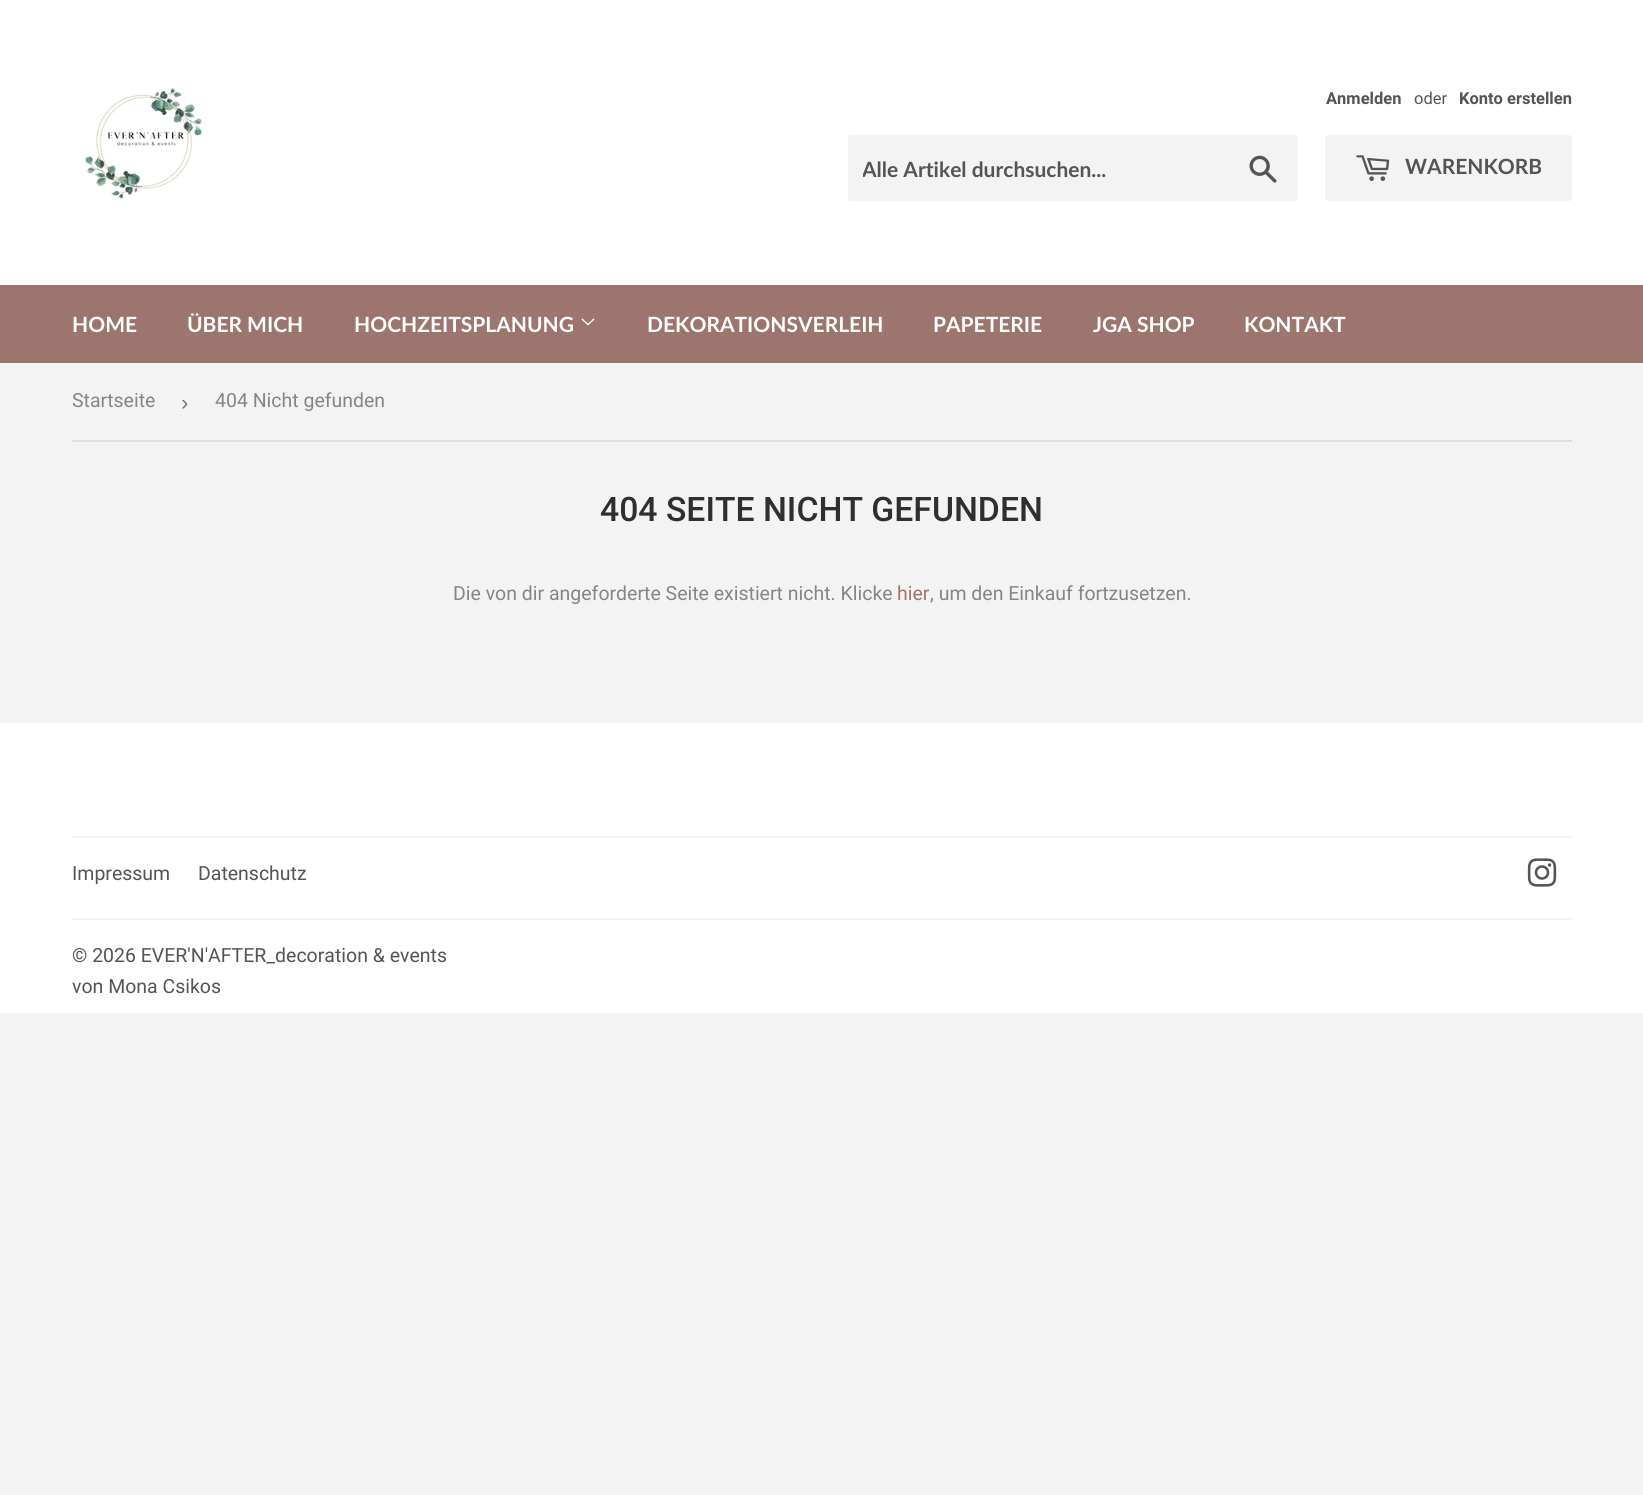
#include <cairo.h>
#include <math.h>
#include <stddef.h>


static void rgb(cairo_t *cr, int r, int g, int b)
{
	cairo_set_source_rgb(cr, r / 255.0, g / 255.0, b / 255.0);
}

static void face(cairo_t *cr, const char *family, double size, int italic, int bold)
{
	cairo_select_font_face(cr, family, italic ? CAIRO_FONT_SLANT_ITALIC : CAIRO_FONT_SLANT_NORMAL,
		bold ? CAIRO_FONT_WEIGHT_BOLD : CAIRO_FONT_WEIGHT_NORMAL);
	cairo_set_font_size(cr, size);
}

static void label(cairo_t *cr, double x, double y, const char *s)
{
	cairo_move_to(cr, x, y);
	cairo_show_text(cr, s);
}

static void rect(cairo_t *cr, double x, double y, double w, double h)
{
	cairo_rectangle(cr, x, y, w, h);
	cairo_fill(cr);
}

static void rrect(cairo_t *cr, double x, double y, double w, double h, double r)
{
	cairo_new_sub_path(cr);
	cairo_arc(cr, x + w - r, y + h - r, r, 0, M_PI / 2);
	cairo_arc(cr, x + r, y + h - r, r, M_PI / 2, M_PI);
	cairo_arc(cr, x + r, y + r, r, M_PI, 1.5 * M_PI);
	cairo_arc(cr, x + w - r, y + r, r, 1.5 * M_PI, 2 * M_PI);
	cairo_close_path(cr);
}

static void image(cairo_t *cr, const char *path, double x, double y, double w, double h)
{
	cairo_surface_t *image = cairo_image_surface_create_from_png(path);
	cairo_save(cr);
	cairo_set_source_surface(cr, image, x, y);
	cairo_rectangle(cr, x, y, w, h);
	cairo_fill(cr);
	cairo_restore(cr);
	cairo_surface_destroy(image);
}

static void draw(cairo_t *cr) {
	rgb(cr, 243, 243, 243);
	cairo_paint(cr);
	rgb(cr, 255, 255, 255);
	rect(cr, 0, 0, 1643, 285);
	image(cr, "image0.png", 85, 88, 117, 111);
	face(cr, "Roboto", 16.5, 0, 1);
	rgb(cr, 84, 84, 84);
	label(cr, 1326, 104, "Anmelden");
	face(cr, "Roboto", 16.5, 0, 0);
	label(cr, 1414, 104, "oder");
	face(cr, "Roboto", 16.5, 0, 1);
	label(cr, 1459, 104, "Konto erstellen");
	rgb(cr, 243, 243, 243);
	rrect(cr, 848, 135, 450, 66, 3);
	cairo_fill(cr);
	cairo_save(cr);
	cairo_rectangle(cr, 863, 156, 361, 26);
	cairo_clip(cr);
	face(cr, "Lato", 21, 0, 1);
	rgb(cr, 84, 84, 84);
	label(cr, 862, 177, "Alle Artikel durchsuchen...");
	cairo_restore(cr);
	image(cr, "image1.png", 1249, 155, 28, 28);
	rrect(cr, 1325, 135, 247, 66, 3);
	cairo_fill(cr);
	image(cr, "image2.png", 1356, 155, 34, 26);
	face(cr, "Lato", 21, 0, 1);
	rgb(cr, 84, 84, 84);
	label(cr, 1405, 174, "WARENKORB");
	rgb(cr, 156, 117, 111);
	rect(cr, 0, 285, 1643, 78);
	rgb(cr, 255, 255, 255);
	label(cr, 72, 332, "HOME");
	label(cr, 187, 332, "ÜBER MICH");
	label(cr, 354, 332, "HOCHZEITSPLANUNG");
	image(cr, "image3.png", 581, 318, 14, 8);
	label(cr, 647, 332, "DEKORATIONSVERLEIH");
	label(cr, 933, 332, "PAPETERIE");
	label(cr, 1093, 332, "JGA SHOP");
	label(cr, 1244, 332, "KONTAKT");
	rgb(cr, 222, 222, 222);
	rect(cr, 72, 440, 1500, 2);
	face(cr, "Roboto", 19.5, 0, 0);
	rgb(cr, 133, 133, 133);
	label(cr, 72, 407, "Startseite");
	face(cr, "Liberation Sans", 22, 0, 0);
	rgb(cr, 118, 118, 118);
	label(cr, 181, 410, "›");
	face(cr, "Roboto", 19.5, 0, 0);
	rgb(cr, 133, 133, 133);
	label(cr, 215, 407, "404 Nicht gefunden");
	face(cr, "Roboto Medium", 33.75, 0, 0);
	rgb(cr, 47, 47, 47);
	label(cr, 600, 521, "404 SEITE NICHT GEFUNDEN");
	face(cr, "Roboto", 19.5, 0, 0);
	rgb(cr, 133, 133, 133);
	label(cr, 453, 600, "Die von dir angeforderte Seite existiert nicht. Klicke");
	rgb(cr, 156, 117, 111);
	label(cr, 897, 600, "hier");
	rgb(cr, 133, 133, 133);
	label(cr, 930, 600, ", um den Einkauf fortzusetzen.");
	rgb(cr, 255, 255, 255);
	rect(cr, 0, 723, 1643, 290);
	rgb(cr, 242, 242, 242);
	rect(cr, 72, 836, 1500, 2);
	rgb(cr, 84, 84, 84);
	label(cr, 72, 880, "Impressum");
	label(cr, 198, 880, "Datenschutz");
	image(cr, "image4.png", 1527, 858, 30, 29);
	rgb(cr, 242, 242, 242);
	rect(cr, 72, 918, 1500, 2);
	rgb(cr, 84, 84, 84);
	label(cr, 72, 962, "© 2026 EVER'N'AFTER_decoration & events");
	label(cr, 72, 993, "von Mona Csikos");
}

int main(void) {
	cairo_surface_t *surface = cairo_image_surface_create(CAIRO_FORMAT_RGB24, 1643, 1495);
	cairo_t *cr = cairo_create(surface);
	cairo_font_options_t *options = cairo_font_options_create();
	cairo_font_options_set_hint_metrics(options, CAIRO_HINT_METRICS_OFF);
	cairo_font_options_set_hint_style(options, CAIRO_HINT_STYLE_NONE);
	cairo_set_font_options(cr, options);
	cairo_set_miter_limit(cr, 4);
	draw(cr);
	cairo_surface_write_to_png(surface, "render.png");
	cairo_font_options_destroy(options);
	cairo_destroy(cr);
	cairo_surface_destroy(surface);
	return 0;
}
